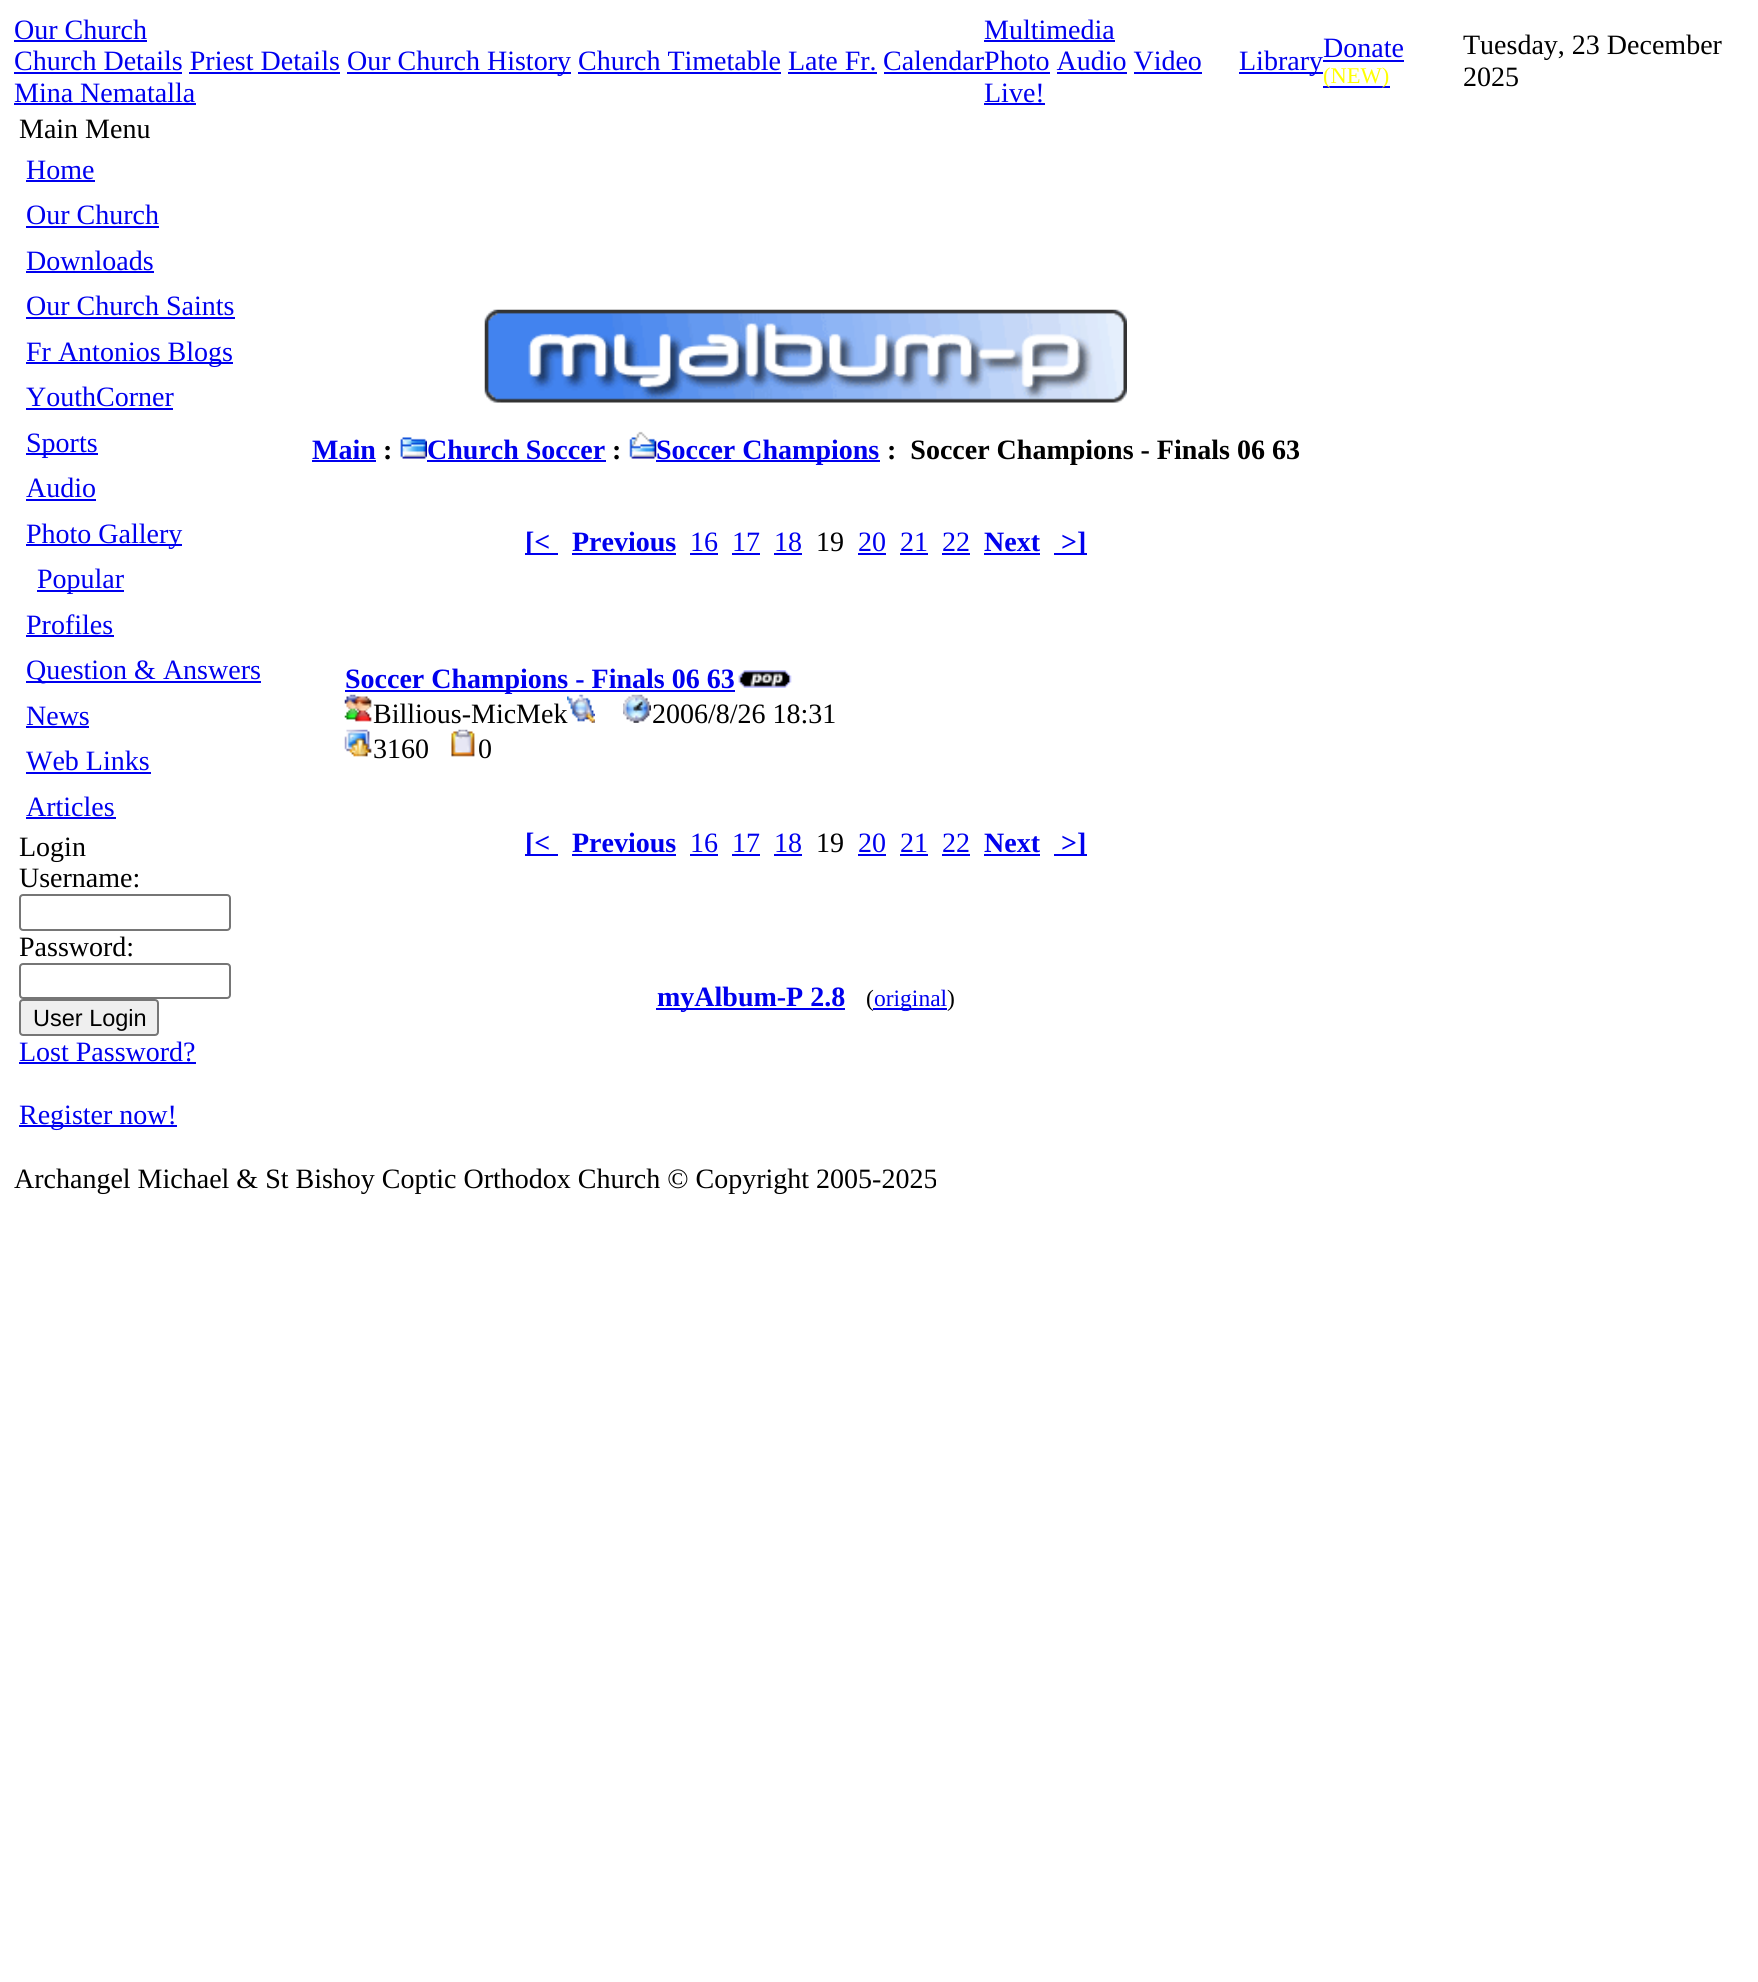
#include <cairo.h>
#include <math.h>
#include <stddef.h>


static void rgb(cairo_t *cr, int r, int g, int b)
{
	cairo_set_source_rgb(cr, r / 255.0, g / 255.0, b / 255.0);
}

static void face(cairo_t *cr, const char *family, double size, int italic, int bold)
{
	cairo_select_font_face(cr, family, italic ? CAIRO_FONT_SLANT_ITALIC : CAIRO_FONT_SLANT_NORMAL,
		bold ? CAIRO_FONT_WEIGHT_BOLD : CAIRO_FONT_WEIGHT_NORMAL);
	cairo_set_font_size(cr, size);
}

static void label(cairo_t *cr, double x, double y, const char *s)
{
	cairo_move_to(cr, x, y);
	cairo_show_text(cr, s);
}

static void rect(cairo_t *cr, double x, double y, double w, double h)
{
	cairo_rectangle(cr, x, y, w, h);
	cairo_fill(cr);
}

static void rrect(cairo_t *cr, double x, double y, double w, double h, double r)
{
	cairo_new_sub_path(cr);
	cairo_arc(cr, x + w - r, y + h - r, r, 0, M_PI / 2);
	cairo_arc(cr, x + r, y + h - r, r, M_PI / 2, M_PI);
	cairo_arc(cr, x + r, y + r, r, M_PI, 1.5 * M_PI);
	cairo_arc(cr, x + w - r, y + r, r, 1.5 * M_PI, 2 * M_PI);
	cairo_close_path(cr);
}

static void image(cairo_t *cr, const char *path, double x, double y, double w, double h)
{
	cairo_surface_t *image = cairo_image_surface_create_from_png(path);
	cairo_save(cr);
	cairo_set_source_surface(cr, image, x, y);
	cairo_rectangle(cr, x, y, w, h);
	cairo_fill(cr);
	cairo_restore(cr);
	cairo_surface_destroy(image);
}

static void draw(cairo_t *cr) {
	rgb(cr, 255, 255, 255);
	cairo_paint(cr);
	face(cr, "Liberation Serif", 28, 0, 0);
	rgb(cr, 0, 0, 238);
	label(cr, 14, 39, "Our Church");
	rect(cr, 14, 40, 133, 2);
	label(cr, 14, 70, "Church Details Priest Details");
	rect(cr, 14, 72, 168, 2);
	rect(cr, 347, 72, 224, 2);
	label(cr, 347, 70, "Our Church History Church Timetable Late Fr.");
	rect(cr, 189, 72, 151, 2);
	rect(cr, 578, 72, 203, 2);
	label(cr, 14, 102, "Mina Nematalla");
	rect(cr, 788, 72, 89, 2);
	rect(cr, 14, 103, 182, 2);
	label(cr, 984, 39, "Multimedia");
	rect(cr, 984, 40, 131, 2);
	rect(cr, 1057, 72, 70, 2);
	rect(cr, 1134, 72, 68, 2);
	label(cr, 984, 102, "Live!");
	rect(cr, 984, 103, 61, 2);
	label(cr, 1323, 57, "Donate");
	rect(cr, 1323, 60, 81, 2);
	rect(cr, 1323, 86, 67, 2);
	face(cr, "Liberation Serif", 22.5, 0, 0);
	rgb(cr, 255, 255, 0);
	label(cr, 1323, 83, "(NEW)");
	face(cr, "Liberation Serif", 28, 0, 0);
	rgb(cr, 0, 0, 0);
	label(cr, 1463, 54, "Tuesday, 23 December");
	label(cr, 1463, 86, "2025");
	rgb(cr, 0, 0, 238);
	label(cr, 883, 70, "CalendarPhoto Audio Video");
	rect(cr, 884, 72, 166, 2);
	rect(cr, 1239, 72, 84, 2);
	label(cr, 1239, 70, "Library");
	rgb(cr, 0, 0, 0);
	label(cr, 19, 138, "Main Menu");
	rgb(cr, 0, 0, 238);
	label(cr, 26, 179, "Home");
	rect(cr, 26, 180, 69, 2);
	label(cr, 26, 224, "Our Church");
	rect(cr, 26, 226, 133, 2);
	label(cr, 26, 270, "Downloads");
	rect(cr, 26, 271, 128, 2);
	label(cr, 26, 315, "Our Church Saints");
	rect(cr, 26, 317, 209, 2);
	rect(cr, 26, 362, 207, 2);
	label(cr, 26, 361, "Fr Antonios Blogs");
	label(cr, 26, 406, "YouthCorner");
	rect(cr, 26, 408, 147, 2);
	rect(cr, 26, 453, 72, 2);
	label(cr, 26, 452, "Sports");
	label(cr, 26, 497, "Audio");
	rect(cr, 26, 499, 70, 2);
	rect(cr, 26, 544, 156, 2);
	label(cr, 26, 543, "Photo Gallery");
	rect(cr, 37, 590, 87, 2);
	label(cr, 37, 588, "Popular");
	label(cr, 26, 634, "Profiles");
	rect(cr, 26, 635, 88, 2);
	rect(cr, 26, 681, 235, 2);
	label(cr, 26, 679, "Question & Answers");
	label(cr, 26, 725, "News");
	rect(cr, 26, 726, 63, 2);
	label(cr, 26, 770, "Web Links");
	rect(cr, 26, 772, 125, 2);
	label(cr, 26, 816, "Articles");
	rect(cr, 26, 817, 90, 2);
	rgb(cr, 0, 0, 0);
	label(cr, 19, 856, "Login");
	label(cr, 19, 887, "Username:");
	rrect(cr, 20, 895, 210, 35, 3);
	rgb(cr, 118, 118, 118);
	cairo_stroke(cr);
	rgb(cr, 0, 0, 0);
	label(cr, 19, 956, "Password:");
	rrect(cr, 20, 964, 210, 34, 3);
	rgb(cr, 118, 118, 118);
	cairo_stroke(cr);
	rgb(cr, 239, 239, 239);
	rrect(cr, 20, 1000, 138, 35, 3);
	cairo_fill_preserve(cr);
	rgb(cr, 118, 118, 118);
	cairo_stroke(cr);
	face(cr, "Liberation Sans", 23.5, 0, 0);
	rgb(cr, 0, 0, 0);
	label(cr, 33, 1026, "User Login");
	face(cr, "Liberation Serif", 28, 0, 0);
	rgb(cr, 0, 0, 238);
	label(cr, 19, 1061, "Lost Password?");
	rect(cr, 19, 1062, 177, 2);
	rect(cr, 19, 1125, 158, 2);
	label(cr, 19, 1124, "Register now!");
	image(cr, "image0.png", 484, 309, 643, 94);
	face(cr, "Liberation Serif", 28, 0, 1);
	label(cr, 312, 459, "Main");
	rect(cr, 312, 460, 64, 2);
	rgb(cr, 0, 0, 0);
	label(cr, 383, 459, ":");
	image(cr, "image1.png", 400, 437, 27, 22);
	rgb(cr, 0, 0, 238);
	label(cr, 427, 459, "Church Soccer");
	rect(cr, 427, 460, 179, 2);
	rgb(cr, 0, 0, 0);
	label(cr, 612, 459, ":");
	image(cr, "image2.png", 629, 431, 28, 28);
	rgb(cr, 0, 0, 238);
	rect(cr, 656, 460, 224, 2);
	label(cr, 656, 459, "Soccer Champions");
	rgb(cr, 0, 0, 0);
	label(cr, 887, 459, ":  Soccer Champions - Finals 06 63");
	rgb(cr, 0, 0, 238);
	rect(cr, 525, 553, 33, 2);
	label(cr, 525, 551, "[<");
	label(cr, 572, 551, "Previous");
	rect(cr, 572, 553, 104, 2);
	face(cr, "Liberation Serif", 28, 0, 0);
	label(cr, 690, 551, "16");
	rect(cr, 690, 553, 28, 2);
	label(cr, 732, 551, "17");
	rect(cr, 732, 553, 28, 2);
	label(cr, 774, 551, "18");
	rect(cr, 774, 553, 28, 2);
	rgb(cr, 0, 0, 0);
	label(cr, 816, 551, "19");
	rgb(cr, 0, 0, 238);
	label(cr, 858, 551, "20");
	rect(cr, 858, 553, 28, 2);
	label(cr, 900, 551, "21");
	rect(cr, 900, 553, 28, 2);
	label(cr, 942, 551, "22");
	rect(cr, 942, 553, 28, 2);
	face(cr, "Liberation Serif", 28, 0, 1);
	label(cr, 984, 551, "Next");
	rect(cr, 984, 553, 56, 2);
	rect(cr, 1054, 553, 33, 2);
	label(cr, 1061, 551, ">]");
	rect(cr, 345, 690, 390, 2);
	label(cr, 345, 688, "Soccer Champions - Finals 06 63");
	image(cr, "image3.png", 738, 670, 54, 18);
	image(cr, "image4.png", 344, 694, 28, 28);
	face(cr, "Liberation Serif", 28, 0, 0);
	rgb(cr, 0, 0, 0);
	label(cr, 373, 723, "Billious-MicMek");
	image(cr, "image5.png", 567, 694, 28, 29);
	image(cr, "image6.png", 623, 694, 28, 29);
	label(cr, 652, 723, "2006/8/26 18:31");
	image(cr, "image7.png", 344, 729, 28, 28);
	label(cr, 373, 758, "3160");
	image(cr, "image8.png", 451, 729, 24, 28);
	label(cr, 478, 758, "0");
	rgb(cr, 0, 0, 238);
	rect(cr, 525, 854, 33, 2);
	face(cr, "Liberation Serif", 28, 0, 1);
	label(cr, 525, 852, "[<");
	label(cr, 572, 852, "Previous");
	rect(cr, 572, 854, 104, 2);
	face(cr, "Liberation Serif", 28, 0, 0);
	label(cr, 690, 852, "16");
	rect(cr, 690, 854, 28, 2);
	label(cr, 732, 852, "17");
	rect(cr, 732, 854, 28, 2);
	label(cr, 774, 852, "18");
	rect(cr, 774, 854, 28, 2);
	rgb(cr, 0, 0, 0);
	label(cr, 816, 852, "19");
	rgb(cr, 0, 0, 238);
	label(cr, 858, 852, "20");
	rect(cr, 858, 854, 28, 2);
	label(cr, 900, 852, "21");
	rect(cr, 900, 854, 28, 2);
	label(cr, 942, 852, "22");
	rect(cr, 942, 854, 28, 2);
	face(cr, "Liberation Serif", 28, 0, 1);
	label(cr, 984, 852, "Next");
	rect(cr, 984, 854, 56, 2);
	rect(cr, 1054, 854, 33, 2);
	label(cr, 1061, 852, ">]");
	rect(cr, 656, 1008, 189, 2);
	label(cr, 657, 1006, "myAlbum-P 2.8");
	face(cr, "Liberation Serif", 23.5, 0, 0);
	rgb(cr, 0, 0, 0);
	label(cr, 866, 1006, "(");
	rgb(cr, 0, 0, 238);
	rect(cr, 873, 1008, 74, 2);
	label(cr, 874, 1006, "original");
	rgb(cr, 0, 0, 0);
	label(cr, 947, 1006, ")");
	face(cr, "Liberation Serif", 28, 0, 0);
	label(cr, 14, 1188, "Archangel Michael & St Bishoy Coptic Orthodox Church © Copyright 2005-2025");
}

int main(void) {
	cairo_surface_t *surface = cairo_image_surface_create(CAIRO_FORMAT_RGB24, 1758, 1982);
	cairo_t *cr = cairo_create(surface);
	cairo_font_options_t *options = cairo_font_options_create();
	cairo_font_options_set_hint_metrics(options, CAIRO_HINT_METRICS_OFF);
	cairo_font_options_set_hint_style(options, CAIRO_HINT_STYLE_NONE);
	cairo_set_font_options(cr, options);
	cairo_set_miter_limit(cr, 4);
	draw(cr);
	cairo_surface_write_to_png(surface, "render.png");
	cairo_font_options_destroy(options);
	cairo_destroy(cr);
	cairo_surface_destroy(surface);
	return 0;
}
